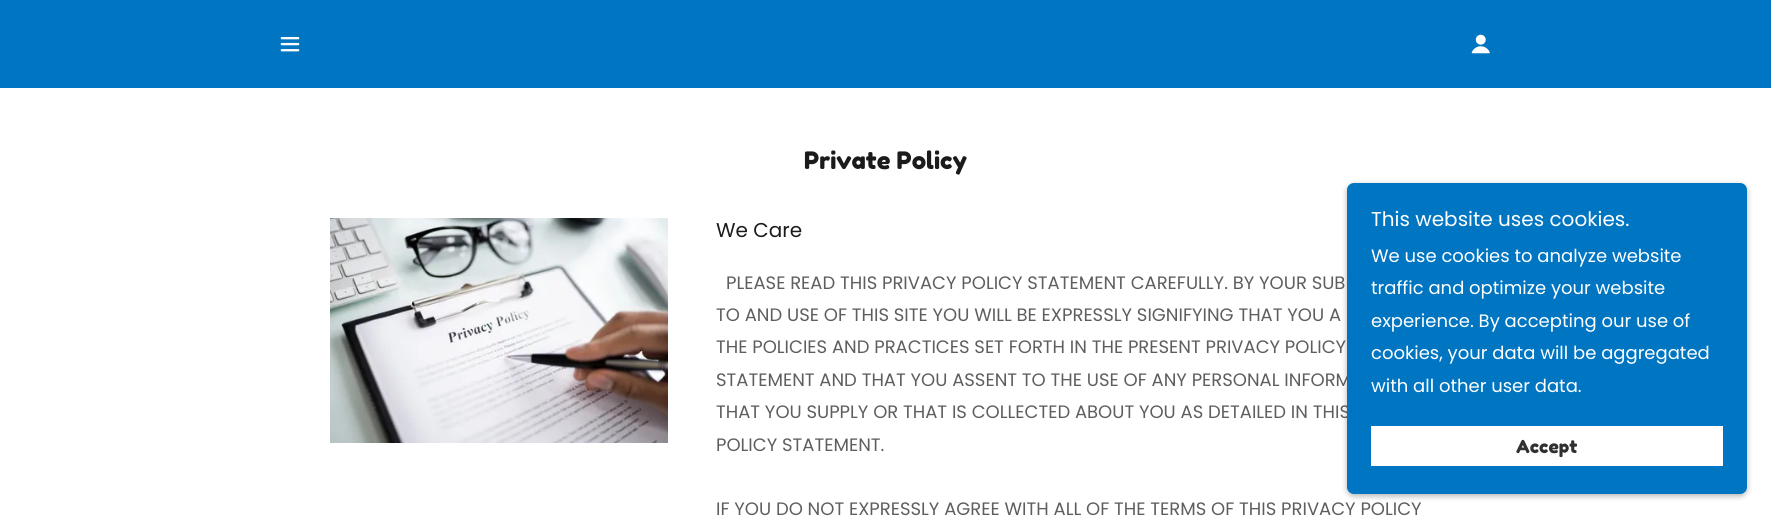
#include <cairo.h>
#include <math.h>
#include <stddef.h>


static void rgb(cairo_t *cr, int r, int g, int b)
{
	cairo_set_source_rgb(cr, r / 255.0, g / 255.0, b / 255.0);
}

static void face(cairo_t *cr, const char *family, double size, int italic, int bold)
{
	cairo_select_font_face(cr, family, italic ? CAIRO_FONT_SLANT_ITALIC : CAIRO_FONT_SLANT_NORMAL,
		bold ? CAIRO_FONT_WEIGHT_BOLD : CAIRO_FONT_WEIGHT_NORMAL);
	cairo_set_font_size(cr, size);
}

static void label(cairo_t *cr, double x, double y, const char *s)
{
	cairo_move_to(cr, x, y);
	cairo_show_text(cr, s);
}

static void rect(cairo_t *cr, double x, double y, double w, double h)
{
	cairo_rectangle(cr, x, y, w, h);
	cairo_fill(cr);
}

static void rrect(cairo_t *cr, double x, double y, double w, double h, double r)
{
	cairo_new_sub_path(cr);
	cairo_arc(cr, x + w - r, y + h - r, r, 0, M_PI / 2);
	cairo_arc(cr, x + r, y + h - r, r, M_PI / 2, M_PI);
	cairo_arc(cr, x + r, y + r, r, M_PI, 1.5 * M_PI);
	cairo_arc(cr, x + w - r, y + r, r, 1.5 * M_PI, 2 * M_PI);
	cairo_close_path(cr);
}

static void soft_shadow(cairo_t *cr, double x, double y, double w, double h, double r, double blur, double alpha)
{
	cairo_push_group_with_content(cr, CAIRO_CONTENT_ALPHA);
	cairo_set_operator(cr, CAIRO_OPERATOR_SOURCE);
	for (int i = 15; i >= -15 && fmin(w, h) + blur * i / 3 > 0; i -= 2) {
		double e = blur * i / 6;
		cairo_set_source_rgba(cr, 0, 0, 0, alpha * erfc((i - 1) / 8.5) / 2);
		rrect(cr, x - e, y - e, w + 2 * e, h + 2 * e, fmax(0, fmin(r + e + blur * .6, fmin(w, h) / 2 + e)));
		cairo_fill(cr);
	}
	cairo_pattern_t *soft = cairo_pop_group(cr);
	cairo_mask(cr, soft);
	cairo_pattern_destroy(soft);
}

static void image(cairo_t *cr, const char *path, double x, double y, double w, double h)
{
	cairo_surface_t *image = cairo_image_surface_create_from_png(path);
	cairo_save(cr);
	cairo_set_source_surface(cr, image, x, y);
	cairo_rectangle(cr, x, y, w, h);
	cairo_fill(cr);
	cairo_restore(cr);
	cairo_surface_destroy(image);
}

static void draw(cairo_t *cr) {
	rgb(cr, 0, 117, 193);
	cairo_paint(cr);
	image(cr, "image0.png", 280, 37, 20, 15);
	image(cr, "image1.png", 1471, 34, 19, 20);
	rgb(cr, 255, 255, 255);
	rect(cr, 0, 88, 1771, 430);
	face(cr, "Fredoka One", 24, 0, 0);
	rgb(cr, 27, 27, 27);
	label(cr, 804, 169, "Private Policy");
	image(cr, "image2.png", 330, 218, 338, 225);
	face(cr, "Poppins", 20, 0, 0);
	label(cr, 716, 237, "We Care");
	face(cr, "Poppins", 18, 0, 0);
	rgb(cr, 94, 94, 94);
	label(cr, 726, 289, "PLEASE READ THIS PRIVACY POLICY STATEMENT CAREFULLY. BY YOUR SUB");
	label(cr, 716, 321, "TO AND USE OF THIS SITE YOU WILL BE EXPRESSLY SIGNIFYING THAT YOU A");
	label(cr, 716, 353, "THE POLICIES AND PRACTICES SET FORTH IN THE PRESENT PRIVACY POLICY");
	label(cr, 716, 386, "STATEMENT AND THAT YOU ASSENT TO THE USE OF ANY PERSONAL INFORM");
	label(cr, 716, 418, "THAT YOU SUPPLY OR THAT IS COLLECTED ABOUT YOU AS DETAILED IN THIS");
	label(cr, 716, 451, "POLICY STATEMENT.");
	label(cr, 716, 515, "IF YOU DO NOT EXPRESSLY AGREE WITH ALL OF THE TERMS OF THIS PRIVACY POLICY");
	rgb(cr, 0, 0, 0);
	soft_shadow(cr, 1347, 185, 400, 311, 7, 3, 0.3);
	rgb(cr, 0, 117, 193);
	rrect(cr, 1347, 183, 400, 311, 7);
	cairo_fill(cr);
	face(cr, "Poppins", 20, 0, 0);
	rgb(cr, 255, 255, 255);
	label(cr, 1371, 226, "This website uses cookies.");
	face(cr, "Poppins", 18, 0, 0);
	label(cr, 1371, 262, "We use cookies to analyze website");
	label(cr, 1371, 294, "traffic and optimize your website");
	label(cr, 1371, 327, "experience. By accepting our use of");
	label(cr, 1371, 359, "cookies, your data will be aggregated");
	label(cr, 1371, 392, "with all other user data.");
	rect(cr, 1371, 426, 352, 40);
	face(cr, "Fredoka One", 18, 0, 0);
	rgb(cr, 48, 48, 48);
	label(cr, 1516, 453, "Accept");
}

int main(void) {
	cairo_surface_t *surface = cairo_image_surface_create(CAIRO_FORMAT_RGB24, 1771, 518);
	cairo_t *cr = cairo_create(surface);
	cairo_font_options_t *options = cairo_font_options_create();
	cairo_font_options_set_hint_metrics(options, CAIRO_HINT_METRICS_OFF);
	cairo_font_options_set_hint_style(options, CAIRO_HINT_STYLE_NONE);
	cairo_set_font_options(cr, options);
	cairo_set_miter_limit(cr, 4);
	draw(cr);
	cairo_surface_write_to_png(surface, "render.png");
	cairo_font_options_destroy(options);
	cairo_destroy(cr);
	cairo_surface_destroy(surface);
	return 0;
}
